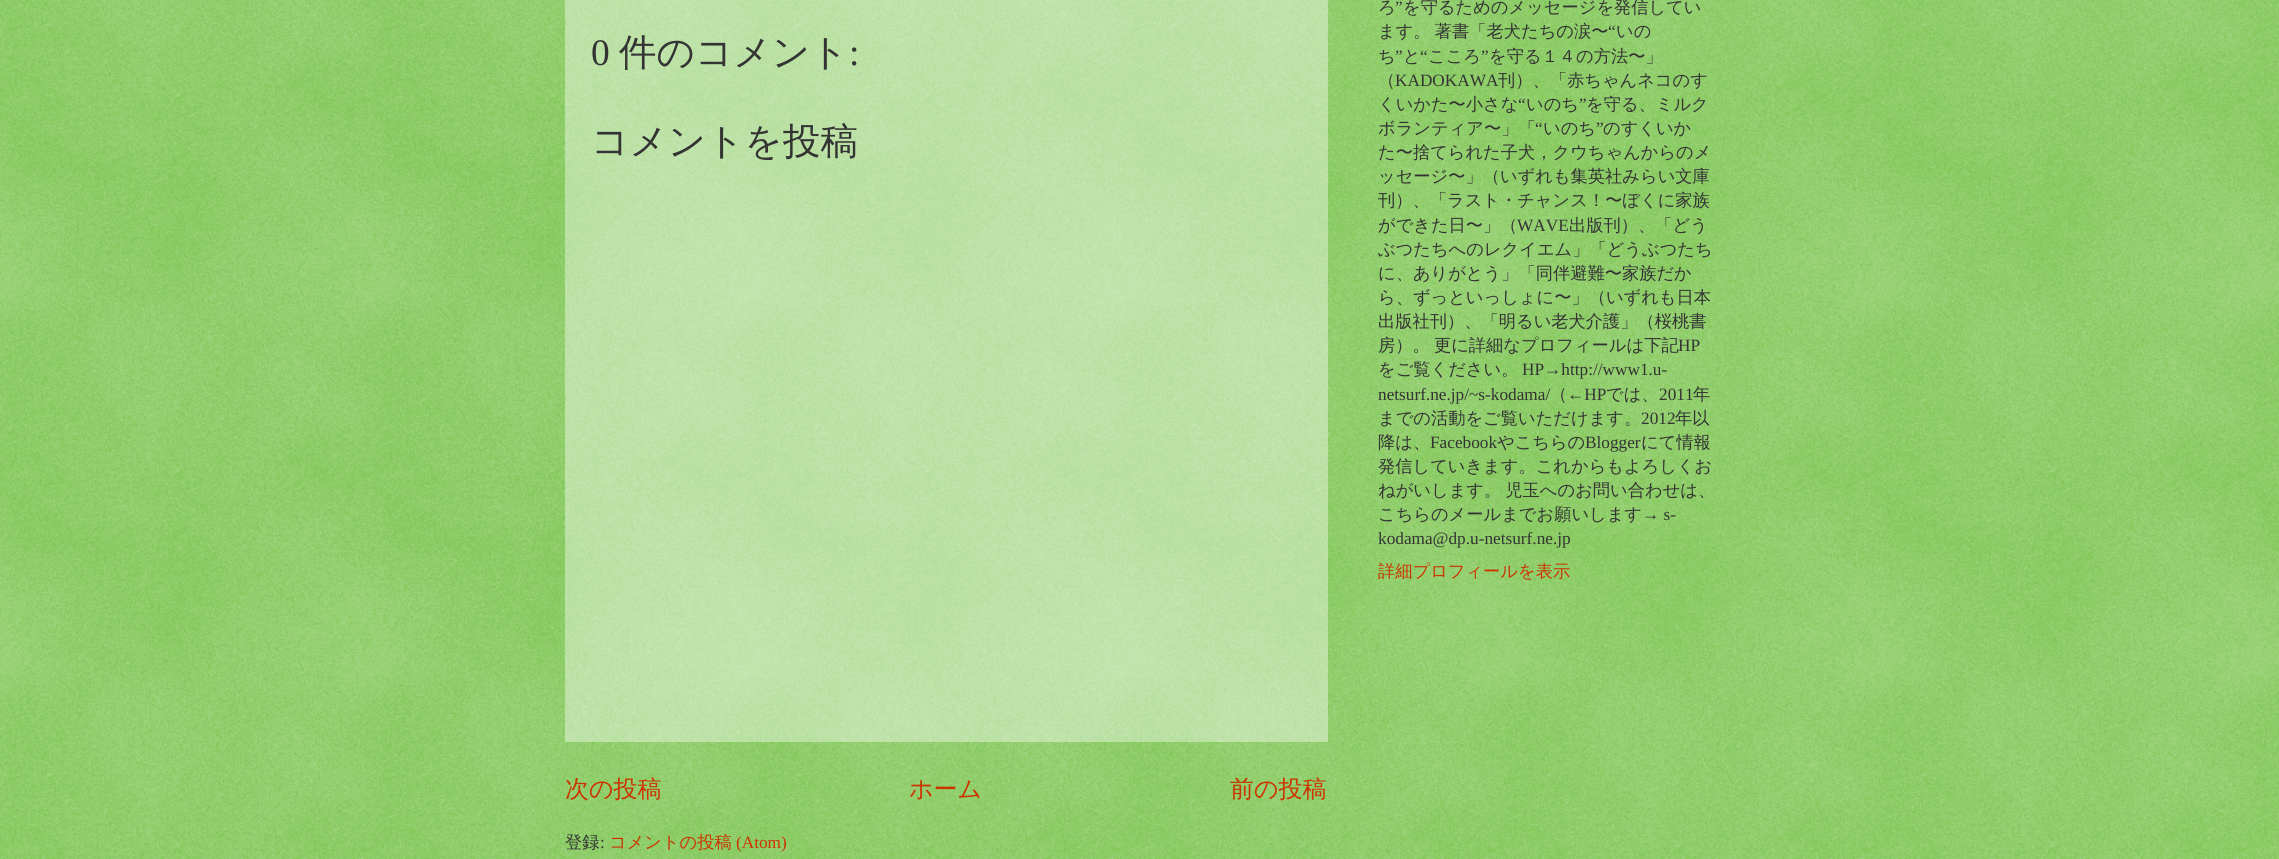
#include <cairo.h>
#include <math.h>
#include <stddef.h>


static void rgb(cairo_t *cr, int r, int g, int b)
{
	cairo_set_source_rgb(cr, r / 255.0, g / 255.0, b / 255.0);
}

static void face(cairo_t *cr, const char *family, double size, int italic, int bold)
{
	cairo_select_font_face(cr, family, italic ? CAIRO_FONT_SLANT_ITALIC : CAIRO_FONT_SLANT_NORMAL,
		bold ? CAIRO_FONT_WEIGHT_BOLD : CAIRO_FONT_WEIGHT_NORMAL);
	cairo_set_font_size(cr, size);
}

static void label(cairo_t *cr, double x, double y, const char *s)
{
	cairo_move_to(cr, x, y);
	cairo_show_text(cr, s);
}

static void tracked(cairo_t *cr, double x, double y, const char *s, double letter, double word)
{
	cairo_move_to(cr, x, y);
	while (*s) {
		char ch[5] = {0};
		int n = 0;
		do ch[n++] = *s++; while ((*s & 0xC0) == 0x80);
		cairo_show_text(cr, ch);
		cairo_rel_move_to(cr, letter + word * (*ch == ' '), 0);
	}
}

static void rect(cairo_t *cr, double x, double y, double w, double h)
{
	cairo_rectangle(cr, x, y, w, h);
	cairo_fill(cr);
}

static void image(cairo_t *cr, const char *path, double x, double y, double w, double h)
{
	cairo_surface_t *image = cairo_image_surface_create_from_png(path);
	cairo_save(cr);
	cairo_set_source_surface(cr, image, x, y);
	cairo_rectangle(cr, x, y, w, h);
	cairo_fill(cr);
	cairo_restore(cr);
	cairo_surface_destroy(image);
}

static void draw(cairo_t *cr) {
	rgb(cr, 102, 187, 51);
	cairo_paint(cr);
	image(cr, "image0.png", 0, 0, 2279, 859);
	cairo_set_source_rgba(cr, 1, 1, 1, 0.4);
	rect(cr, 565, 0, 763, 742);
	face(cr, "Liberation Serif", 37.5, 0, 0);
	rgb(cr, 51, 51, 51);
	label(cr, 591, 65, "0");
	face(cr, "WenQuanYi Zen Hei Medium", 37.5, 0, 0);
	label(cr, 619, 65, "件のコメント");
	face(cr, "Liberation Serif", 37.5, 0, 0);
	label(cr, 849, 65, ":");
	face(cr, "WenQuanYi Zen Hei Medium", 37.5, 0, 0);
	label(cr, 591, 154, "コメントを投稿");
	face(cr, "WenQuanYi Zen Hei Medium", 24, 0, 0);
	rgb(cr, 204, 51, 0);
	label(cr, 565, 797, "次の投稿");
	label(cr, 909, 797, "ホーム");
	label(cr, 1230, 797, "前の投稿");
	face(cr, "WenQuanYi Zen Hei Medium", 17.25, 0, 0);
	rgb(cr, 51, 51, 51);
	label(cr, 565, 848, "登録");
	face(cr, "Liberation Serif", 17.25, 0, 0);
	label(cr, 600, 848, ":");
	face(cr, "WenQuanYi Zen Hei Medium", 17.25, 0, 0);
	rgb(cr, 204, 51, 0);
	label(cr, 609, 848, "コメントの投稿");
	face(cr, "Liberation Serif", 17.25, 0, 0);
	label(cr, 736, 848, "(Atom)");
	face(cr, "WenQuanYi Zen Hei Medium", 17.25, 0, 0);
	rgb(cr, 51, 51, 51);
	label(cr, 1378, 13, "ろ");
	face(cr, "Liberation Serif", 17.25, 0, 0);
	label(cr, 1395, 13, "”");
	face(cr, "WenQuanYi Zen Hei Medium", 17.25, 0, 0);
	label(cr, 1403, 13, "を守るためのメッセージを発信してい");
	tracked(cr, 1378, 37, "ます。 著書「老犬たちの涙〜", 0, -1);
	face(cr, "Liberation Serif", 17.25, 0, 0);
	label(cr, 1608, 37, "“");
	face(cr, "WenQuanYi Zen Hei Medium", 17.25, 0, 0);
	label(cr, 1616, 37, "いの");
	label(cr, 1378, 62, "ち");
	face(cr, "Liberation Serif", 17.25, 0, 0);
	label(cr, 1395, 62, "”");
	face(cr, "WenQuanYi Zen Hei Medium", 17.25, 0, 0);
	label(cr, 1403, 62, "と");
	face(cr, "Liberation Serif", 17.25, 0, 0);
	label(cr, 1420, 62, "“");
	face(cr, "WenQuanYi Zen Hei Medium", 17.25, 0, 0);
	label(cr, 1428, 62, "こころ");
	face(cr, "Liberation Serif", 17.25, 0, 0);
	label(cr, 1481, 62, "”");
	face(cr, "WenQuanYi Zen Hei Medium", 17.25, 0, 0);
	label(cr, 1489, 62, "を守る１４の方法〜」");
	label(cr, 1378, 86, "（");
	face(cr, "Liberation Serif", 17.25, 0, 0);
	label(cr, 1395, 86, "KADOKAWA");
	face(cr, "WenQuanYi Zen Hei Medium", 17.25, 0, 0);
	label(cr, 1498, 86, "刊）、「赤ちゃんネコのす");
	label(cr, 1378, 110, "くいかた〜小さな");
	face(cr, "Liberation Serif", 17.25, 0, 0);
	label(cr, 1518, 110, "“");
	face(cr, "WenQuanYi Zen Hei Medium", 17.25, 0, 0);
	label(cr, 1526, 110, "いのち");
	face(cr, "Liberation Serif", 17.25, 0, 0);
	label(cr, 1579, 110, "”");
	face(cr, "WenQuanYi Zen Hei Medium", 17.25, 0, 0);
	label(cr, 1586, 110, "を守る、ミルク");
	label(cr, 1378, 134, "ボランティア〜」「");
	face(cr, "Liberation Serif", 17.25, 0, 0);
	label(cr, 1535, 134, "“");
	face(cr, "WenQuanYi Zen Hei Medium", 17.25, 0, 0);
	label(cr, 1543, 134, "いのち");
	face(cr, "Liberation Serif", 17.25, 0, 0);
	label(cr, 1596, 134, "”");
	face(cr, "WenQuanYi Zen Hei Medium", 17.25, 0, 0);
	label(cr, 1603, 134, "のすくいか");
	label(cr, 1378, 158, "た〜捨てられた子犬，クウちゃんからのメ");
	label(cr, 1378, 182, "ッセージ〜」（いずれも集英社みらい文庫");
	label(cr, 1378, 206, "刊）、「ラスト・チャンス！〜ぼくに家族");
	label(cr, 1378, 231, "ができた日〜」（");
	face(cr, "Liberation Serif", 17.25, 0, 0);
	label(cr, 1517, 231, "WAVE");
	face(cr, "WenQuanYi Zen Hei Medium", 17.25, 0, 0);
	label(cr, 1569, 231, "出版刊）、「どう");
	label(cr, 1378, 255, "ぶつたちへのレクイエム」「どうぶつたち");
	label(cr, 1378, 279, "に、ありがとう」「同伴避難〜家族だか");
	label(cr, 1378, 303, "ら、ずっといっしょに〜」（いずれも日本");
	label(cr, 1378, 327, "出版社刊）、「明るい老犬介護」（桜桃書");
	tracked(cr, 1378, 351, "房）。 更に詳細なプロフィールは下記", 0, -1);
	face(cr, "Liberation Serif", 17.25, 0, 0);
	label(cr, 1678, 351, "HP");
	face(cr, "WenQuanYi Zen Hei Medium", 17.25, 0, 0);
	label(cr, 1378, 375, "をご覧ください。");
	face(cr, "Liberation Serif", 17.25, 0, 0);
	label(cr, 1522, 375, "HP→http://www1.u-");
	label(cr, 1378, 400, "netsurf.ne.jp/~s-kodama/");
	face(cr, "WenQuanYi Zen Hei Medium", 17.25, 0, 0);
	label(cr, 1550, 400, "（");
	face(cr, "Liberation Serif", 17.25, 0, 0);
	label(cr, 1567, 400, "←HP");
	face(cr, "WenQuanYi Zen Hei Medium", 17.25, 0, 0);
	label(cr, 1606, 400, "では、");
	face(cr, "Liberation Serif", 17.25, 0, 0);
	label(cr, 1659, 400, "2011");
	face(cr, "WenQuanYi Zen Hei Medium", 17.25, 0, 0);
	label(cr, 1693, 400, "年");
	label(cr, 1378, 424, "までの活動をご覧いただけます。");
	face(cr, "Liberation Serif", 17.25, 0, 0);
	label(cr, 1641, 424, "2012");
	face(cr, "WenQuanYi Zen Hei Medium", 17.25, 0, 0);
	label(cr, 1675, 424, "年以");
	label(cr, 1378, 448, "降は、");
	face(cr, "Liberation Serif", 17.25, 0, 0);
	label(cr, 1430, 448, "Facebook");
	face(cr, "WenQuanYi Zen Hei Medium", 17.25, 0, 0);
	label(cr, 1497, 448, "やこちらの");
	face(cr, "Liberation Serif", 17.25, 0, 0);
	label(cr, 1585, 448, "Blogger");
	face(cr, "WenQuanYi Zen Hei Medium", 17.25, 0, 0);
	label(cr, 1641, 448, "にて情報");
	label(cr, 1378, 472, "発信していきます。これからもよろしくお");
	tracked(cr, 1378, 496, "ねがいします。 児玉へのお問い合わせは、", 0, -1);
	label(cr, 1378, 520, "こちらのメールまでお願いします");
	face(cr, "Liberation Serif", 17.25, 0, 0);
	label(cr, 1642, 520, "→ s-");
	label(cr, 1378, 544, "kodama@dp.u-netsurf.ne.jp");
	face(cr, "WenQuanYi Zen Hei Medium", 17.25, 0, 0);
	rgb(cr, 204, 51, 0);
	label(cr, 1378, 577, "詳細プロフィールを表示");
}

int main(void) {
	cairo_surface_t *surface = cairo_image_surface_create(CAIRO_FORMAT_RGB24, 2279, 859);
	cairo_t *cr = cairo_create(surface);
	cairo_font_options_t *options = cairo_font_options_create();
	cairo_font_options_set_hint_metrics(options, CAIRO_HINT_METRICS_OFF);
	cairo_font_options_set_hint_style(options, CAIRO_HINT_STYLE_NONE);
	cairo_set_font_options(cr, options);
	cairo_set_miter_limit(cr, 4);
	draw(cr);
	cairo_surface_write_to_png(surface, "render.png");
	cairo_font_options_destroy(options);
	cairo_destroy(cr);
	cairo_surface_destroy(surface);
	return 0;
}
